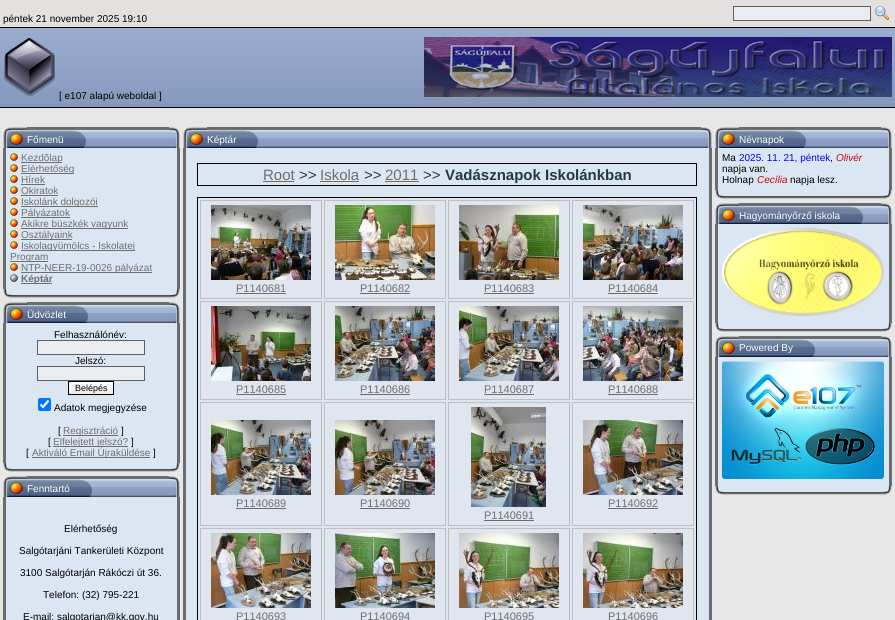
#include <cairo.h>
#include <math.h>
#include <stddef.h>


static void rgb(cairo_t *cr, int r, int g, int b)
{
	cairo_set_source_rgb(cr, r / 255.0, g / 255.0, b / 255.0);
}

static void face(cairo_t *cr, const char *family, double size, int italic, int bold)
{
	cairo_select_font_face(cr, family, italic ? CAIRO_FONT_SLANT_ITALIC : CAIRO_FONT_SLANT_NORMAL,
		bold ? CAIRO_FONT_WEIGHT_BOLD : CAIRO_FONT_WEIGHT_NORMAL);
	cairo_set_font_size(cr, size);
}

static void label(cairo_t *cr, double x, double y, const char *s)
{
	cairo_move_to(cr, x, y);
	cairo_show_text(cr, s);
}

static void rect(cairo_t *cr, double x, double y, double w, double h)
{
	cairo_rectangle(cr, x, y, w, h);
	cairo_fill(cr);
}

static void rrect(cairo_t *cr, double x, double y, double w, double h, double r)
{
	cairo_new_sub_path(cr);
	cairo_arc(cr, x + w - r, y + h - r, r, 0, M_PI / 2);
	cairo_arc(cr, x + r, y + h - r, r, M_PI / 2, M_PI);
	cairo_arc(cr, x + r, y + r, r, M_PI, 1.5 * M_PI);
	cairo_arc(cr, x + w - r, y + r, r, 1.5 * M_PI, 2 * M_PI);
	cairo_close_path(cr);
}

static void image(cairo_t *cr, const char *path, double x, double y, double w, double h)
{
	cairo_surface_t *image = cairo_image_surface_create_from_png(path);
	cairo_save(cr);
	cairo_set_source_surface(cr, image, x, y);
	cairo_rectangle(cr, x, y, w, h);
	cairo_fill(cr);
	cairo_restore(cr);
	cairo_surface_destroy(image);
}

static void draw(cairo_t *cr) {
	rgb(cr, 231, 231, 231);
	cairo_paint(cr);
	rgb(cr, 228, 224, 224);
	rect(cr, 0, 0, 895, 27);
	rgb(cr, 0, 0, 0);
	rect(cr, 0, 27, 895, 1);
	face(cr, "Liberation Sans", 10, 0, 0);
	label(cr, 3, 22, "péntek 21 november 2025 19:10");
	rgb(cr, 234, 238, 242);
	cairo_rectangle(cr, 733.5, 6.5, 137, 14);
	cairo_fill_preserve(cr);
	rgb(cr, 94, 93, 99);
	cairo_set_line_width(cr, 1);
	cairo_stroke(cr);
	image(cr, "image0.png", 875, 6, 14, 14);
	image(cr, "image1.png", 0, 28, 895, 79);
	rgb(cr, 0, 0, 0);
	rect(cr, 0, 107, 895, 1);
	image(cr, "image2.png", 4, 38, 51, 58);
	label(cr, 59, 99, "[ e107 alapú weboldal ]");
	image(cr, "image3.png", 424, 37, 468, 60);
	image(cr, "image4.png", 5, 127, 22, 3);
	rgb(cr, 105, 109, 112);
	rect(cr, 27, 127, 142, 3);
	image(cr, "image5.png", 169, 127, 9, 3);
	image(cr, "image6.png", 3, 130, 24, 18);
	image(cr, "image7.png", 27, 130, 47, 18);
	rgb(cr, 255, 255, 255);
	label(cr, 27, 143, "Főmenü");
	image(cr, "image8.png", 74, 130, 12, 18);
	image(cr, "image9.png", 86, 130, 83, 18);
	image(cr, "image10.png", 169, 130, 11, 18);
	rgb(cr, 105, 109, 112);
	rect(cr, 3, 148, 3, 141);
	rgb(cr, 218, 231, 243);
	rect(cr, 6, 148, 171, 141);
	image(cr, "image11.png", 10, 153, 8, 8);
	rgb(cr, 113, 109, 109);
	rect(cr, 21, 162, 41, 1);
	label(cr, 21, 161, "Kezdõlap");
	image(cr, "image11.png", 10, 164, 8, 8);
	rect(cr, 21, 173, 53, 1);
	label(cr, 21, 172, "Elérhetőség");
	image(cr, "image11.png", 10, 175, 8, 8);
	label(cr, 21, 183, "Hírek");
	rect(cr, 21, 184, 24, 1);
	image(cr, "image11.png", 10, 186, 8, 8);
	label(cr, 21, 194, "Okiratok");
	rect(cr, 21, 195, 37, 1);
	image(cr, "image11.png", 10, 197, 8, 8);
	rect(cr, 21, 206, 77, 1);
	label(cr, 21, 205, "Iskolánk dolgozói");
	image(cr, "image11.png", 10, 208, 8, 8);
	rect(cr, 21, 217, 49, 1);
	label(cr, 21, 216, "Pályázatok");
	image(cr, "image11.png", 10, 219, 8, 8);
	rect(cr, 21, 228, 107, 1);
	label(cr, 21, 227, "Akikre büszkék vagyunk");
	image(cr, "image11.png", 10, 230, 8, 8);
	rect(cr, 21, 239, 51, 1);
	label(cr, 21, 238, "Osztályaink");
	image(cr, "image11.png", 10, 241, 8, 8);
	rect(cr, 21, 250, 114, 1);
	label(cr, 21, 249, "Iskolagyümölcs - Iskolatej");
	rect(cr, 10, 261, 38, 1);
	label(cr, 10, 260, "Program");
	image(cr, "image11.png", 10, 263, 8, 8);
	rect(cr, 21, 272, 131, 1);
	label(cr, 21, 271, "NTP-NEER-19-0026 pályázat");
	image(cr, "image12.png", 10, 274, 8, 8);
	rect(cr, 21, 283, 31, 1);
	face(cr, "Liberation Sans", 10, 0, 1);
	label(cr, 21, 282, "Képtár");
	rgb(cr, 105, 109, 112);
	rect(cr, 177, 148, 3, 141);
	image(cr, "image13.png", 3, 289, 10, 9);
	image(cr, "image14.png", 13, 289, 157, 9);
	image(cr, "image15.png", 170, 289, 10, 9);
	image(cr, "image4.png", 5, 302, 22, 3);
	rect(cr, 27, 302, 142, 3);
	image(cr, "image5.png", 169, 302, 9, 3);
	image(cr, "image6.png", 3, 305, 24, 18);
	image(cr, "image16.png", 27, 305, 49, 18);
	face(cr, "Liberation Sans", 10, 0, 0);
	rgb(cr, 255, 255, 255);
	label(cr, 27, 318, "Üdvözlet");
	image(cr, "image8.png", 76, 305, 12, 18);
	image(cr, "image17.png", 88, 305, 81, 18);
	image(cr, "image10.png", 169, 305, 11, 18);
	rgb(cr, 105, 109, 112);
	rect(cr, 3, 323, 3, 140);
	rgb(cr, 218, 231, 243);
	rect(cr, 6, 323, 171, 140);
	rgb(cr, 0, 0, 0);
	label(cr, 54, 338, "Felhasználónév:");
	rgb(cr, 234, 238, 242);
	cairo_rectangle(cr, 37.5, 340.5, 107, 14);
	cairo_fill_preserve(cr);
	rgb(cr, 94, 93, 99);
	cairo_stroke(cr);
	rgb(cr, 0, 0, 0);
	label(cr, 75, 364, "Jelszó:");
	rgb(cr, 234, 238, 242);
	cairo_rectangle(cr, 37.5, 366.5, 107, 14);
	cairo_fill_preserve(cr);
	rgb(cr, 94, 93, 99);
	cairo_stroke(cr);
	image(cr, "image18.png", 69, 382, 44, 12);
	cairo_rectangle(cr, 68.5, 381.5, 45, 13);
	rgb(cr, 0, 0, 0);
	cairo_stroke(cr);
	face(cr, "Liberation Sans", 9, 0, 0);
	label(cr, 75, 391, "Belépés");
	rgb(cr, 0, 117, 255);
	rrect(cr, 38, 398, 13, 13, 2);
	cairo_fill(cr);
	cairo_new_path(cr);
	cairo_move_to(cr, 40.5, 404.5);
	cairo_line_to(cr, 43, 407);
	cairo_line_to(cr, 48.5, 400.5);
	rgb(cr, 255, 255, 255);
	cairo_set_line_width(cr, 2.1);
	cairo_stroke(cr);
	face(cr, "Liberation Sans", 10, 0, 0);
	rgb(cr, 0, 0, 0);
	label(cr, 54, 411, "Adatok megjegyzése");
	label(cr, 58, 434, "[");
	rgb(cr, 113, 109, 109);
	rect(cr, 63, 435, 55, 1);
	label(cr, 63, 434, "Regisztráció");
	rgb(cr, 0, 0, 0);
	label(cr, 121, 434, "]");
	label(cr, 48, 445, "[");
	rgb(cr, 113, 109, 109);
	rect(cr, 53, 446, 75, 1);
	label(cr, 53, 445, "Elfelejtett jelszó?");
	rgb(cr, 0, 0, 0);
	label(cr, 131, 445, "]");
	label(cr, 26, 456, "[");
	rgb(cr, 113, 109, 109);
	rect(cr, 32, 457, 118, 1);
	label(cr, 32, 456, "Aktiváló Email Újraküldése");
	rgb(cr, 0, 0, 0);
	label(cr, 153, 456, "]");
	rgb(cr, 105, 109, 112);
	rect(cr, 177, 323, 3, 140);
	image(cr, "image13.png", 3, 463, 10, 9);
	image(cr, "image14.png", 13, 463, 157, 9);
	image(cr, "image15.png", 170, 463, 10, 9);
	image(cr, "image4.png", 5, 476, 22, 3);
	rect(cr, 27, 476, 142, 3);
	image(cr, "image5.png", 169, 476, 9, 3);
	image(cr, "image6.png", 3, 479, 24, 18);
	image(cr, "image19.png", 27, 479, 53, 18);
	rgb(cr, 255, 255, 255);
	label(cr, 27, 492, "Fenntartó");
	image(cr, "image8.png", 80, 479, 12, 18);
	image(cr, "image20.png", 92, 479, 77, 18);
	image(cr, "image10.png", 169, 479, 11, 18);
	rgb(cr, 105, 109, 112);
	rect(cr, 3, 497, 3, 123);
	rgb(cr, 218, 231, 243);
	rect(cr, 6, 497, 171, 123);
	rgb(cr, 0, 0, 0);
	label(cr, 64, 532, "Elérhetőség");
	label(cr, 19, 554, "Salgótarjáni Tankerületi Központ");
	label(cr, 20, 576, "3100 Salgótarján Rákóczi út 36.");
	label(cr, 43, 598, "Telefon: (32) 795-221");
	label(cr, 23, 620, "E-mail: salgotarjan@kk.gov.hu");
	rgb(cr, 105, 109, 112);
	rect(cr, 177, 497, 3, 123);
	image(cr, "image4.png", 185, 127, 22, 3);
	rect(cr, 207, 127, 494, 3);
	image(cr, "image5.png", 701, 127, 9, 3);
	image(cr, "image6.png", 183, 130, 24, 18);
	image(cr, "image21.png", 207, 130, 39, 18);
	rgb(cr, 255, 255, 255);
	label(cr, 207, 143, "Képtár");
	image(cr, "image8.png", 246, 130, 12, 18);
	image(cr, "image22.png", 258, 130, 443, 18);
	image(cr, "image10.png", 701, 130, 11, 18);
	rgb(cr, 105, 109, 112);
	rect(cr, 183, 148, 3, 472);
	rgb(cr, 218, 231, 243);
	rect(cr, 186, 148, 523, 472);
	cairo_rectangle(cr, 197.5, 163.5, 499, 22);
	rgb(cr, 0, 0, 0);
	cairo_set_line_width(cr, 1);
	cairo_stroke(cr);
	face(cr, "Liberation Sans", 15, 0, 0);
	rgb(cr, 113, 109, 109);
	label(cr, 263, 180, "Root");
	rect(cr, 263, 181, 31, 1);
	rgb(cr, 36, 59, 59);
	label(cr, 299, 180, ">>");
	rgb(cr, 113, 109, 109);
	label(cr, 320, 180, "Iskola");
	rect(cr, 320, 181, 39, 1);
	rgb(cr, 36, 59, 59);
	label(cr, 364, 180, ">>");
	rgb(cr, 113, 109, 109);
	label(cr, 385, 180, "2011");
	rect(cr, 385, 181, 34, 1);
	rgb(cr, 36, 59, 59);
	label(cr, 423, 180, ">>");
	face(cr, "Liberation Sans", 15, 0, 1);
	label(cr, 445, 180, "Vadásznapok Iskolánkban");
	cairo_rectangle(cr, 197.5, 197.5, 499, 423);
	rgb(cr, 0, 0, 0);
	cairo_stroke(cr);
	rgb(cr, 223, 230, 239);
	cairo_rectangle(cr, 200.5, 200.5, 121, 98);
	cairo_fill_preserve(cr);
	rgb(cr, 195, 189, 189);
	cairo_stroke(cr);
	image(cr, "image23.png", 211, 205, 100, 75);
	face(cr, "Liberation Sans", 11, 0, 0);
	rgb(cr, 113, 109, 109);
	label(cr, 236, 292, "P1140681");
	rect(cr, 236, 293, 50, 1);
	rgb(cr, 223, 230, 239);
	cairo_rectangle(cr, 324.5, 200.5, 121, 98);
	cairo_fill_preserve(cr);
	rgb(cr, 195, 189, 189);
	cairo_stroke(cr);
	image(cr, "image24.png", 335, 205, 100, 75);
	rgb(cr, 113, 109, 109);
	label(cr, 360, 292, "P1140682");
	rect(cr, 360, 293, 50, 1);
	rgb(cr, 223, 230, 239);
	cairo_rectangle(cr, 448.5, 200.5, 121, 98);
	cairo_fill_preserve(cr);
	rgb(cr, 195, 189, 189);
	cairo_stroke(cr);
	image(cr, "image25.png", 459, 205, 100, 75);
	rgb(cr, 113, 109, 109);
	label(cr, 484, 292, "P1140683");
	rect(cr, 484, 293, 50, 1);
	rgb(cr, 223, 230, 239);
	cairo_rectangle(cr, 572.5, 200.5, 121, 98);
	cairo_fill_preserve(cr);
	rgb(cr, 195, 189, 189);
	cairo_stroke(cr);
	image(cr, "image26.png", 583, 205, 100, 75);
	rgb(cr, 113, 109, 109);
	label(cr, 608, 292, "P1140684");
	rect(cr, 608, 293, 50, 1);
	rgb(cr, 223, 230, 239);
	cairo_rectangle(cr, 200.5, 301.5, 121, 98);
	cairo_fill_preserve(cr);
	rgb(cr, 195, 189, 189);
	cairo_stroke(cr);
	image(cr, "image27.png", 211, 306, 100, 75);
	rgb(cr, 113, 109, 109);
	label(cr, 236, 393, "P1140685");
	rect(cr, 236, 394, 50, 1);
	rgb(cr, 223, 230, 239);
	cairo_rectangle(cr, 324.5, 301.5, 121, 98);
	cairo_fill_preserve(cr);
	rgb(cr, 195, 189, 189);
	cairo_stroke(cr);
	image(cr, "image28.png", 335, 306, 100, 75);
	rgb(cr, 113, 109, 109);
	label(cr, 360, 393, "P1140686");
	rect(cr, 360, 394, 50, 1);
	rgb(cr, 223, 230, 239);
	cairo_rectangle(cr, 448.5, 301.5, 121, 98);
	cairo_fill_preserve(cr);
	rgb(cr, 195, 189, 189);
	cairo_stroke(cr);
	image(cr, "image29.png", 459, 306, 100, 75);
	rgb(cr, 113, 109, 109);
	label(cr, 484, 393, "P1140687");
	rect(cr, 484, 394, 50, 1);
	rgb(cr, 223, 230, 239);
	cairo_rectangle(cr, 572.5, 301.5, 121, 98);
	cairo_fill_preserve(cr);
	rgb(cr, 195, 189, 189);
	cairo_stroke(cr);
	image(cr, "image30.png", 583, 306, 100, 75);
	rgb(cr, 113, 109, 109);
	label(cr, 608, 393, "P1140688");
	rect(cr, 608, 394, 50, 1);
	rgb(cr, 223, 230, 239);
	cairo_rectangle(cr, 200.5, 402.5, 121, 123);
	cairo_fill_preserve(cr);
	rgb(cr, 195, 189, 189);
	cairo_stroke(cr);
	image(cr, "image31.png", 211, 420, 100, 75);
	rgb(cr, 113, 109, 109);
	label(cr, 236, 507, "P1140689");
	rect(cr, 236, 508, 50, 1);
	rgb(cr, 223, 230, 239);
	cairo_rectangle(cr, 324.5, 402.5, 121, 123);
	cairo_fill_preserve(cr);
	rgb(cr, 195, 189, 189);
	cairo_stroke(cr);
	image(cr, "image32.png", 335, 420, 100, 75);
	rgb(cr, 113, 109, 109);
	label(cr, 360, 507, "P1140690");
	rect(cr, 360, 508, 50, 1);
	rgb(cr, 223, 230, 239);
	cairo_rectangle(cr, 572.5, 402.5, 121, 123);
	cairo_fill_preserve(cr);
	rgb(cr, 195, 189, 189);
	cairo_stroke(cr);
	image(cr, "image33.png", 583, 420, 100, 75);
	rgb(cr, 113, 109, 109);
	label(cr, 608, 507, "P1140692");
	rect(cr, 608, 508, 50, 1);
	rgb(cr, 223, 230, 239);
	cairo_rectangle(cr, 448.5, 402.5, 121, 123);
	cairo_fill_preserve(cr);
	rgb(cr, 195, 189, 189);
	cairo_stroke(cr);
	image(cr, "image34.png", 471, 407, 75, 100);
	rgb(cr, 113, 109, 109);
	label(cr, 484, 519, "P1140691");
	rect(cr, 484, 520, 50, 1);
	rgb(cr, 223, 230, 239);
	cairo_rectangle(cr, 200.5, 528.5, 121, 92);
	cairo_fill_preserve(cr);
	rgb(cr, 195, 189, 189);
	cairo_stroke(cr);
	image(cr, "image35.png", 211, 533, 100, 75);
	rgb(cr, 113, 109, 109);
	label(cr, 236, 620, "P1140693");
	rgb(cr, 223, 230, 239);
	cairo_rectangle(cr, 324.5, 528.5, 121, 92);
	cairo_fill_preserve(cr);
	rgb(cr, 195, 189, 189);
	cairo_stroke(cr);
	image(cr, "image36.png", 335, 533, 100, 75);
	rgb(cr, 113, 109, 109);
	label(cr, 360, 620, "P1140694");
	rgb(cr, 223, 230, 239);
	cairo_rectangle(cr, 448.5, 528.5, 121, 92);
	cairo_fill_preserve(cr);
	rgb(cr, 195, 189, 189);
	cairo_stroke(cr);
	image(cr, "image37.png", 459, 533, 100, 75);
	rgb(cr, 113, 109, 109);
	label(cr, 484, 620, "P1140695");
	rgb(cr, 223, 230, 239);
	cairo_rectangle(cr, 572.5, 528.5, 121, 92);
	cairo_fill_preserve(cr);
	rgb(cr, 195, 189, 189);
	cairo_stroke(cr);
	image(cr, "image38.png", 583, 533, 100, 75);
	rgb(cr, 113, 109, 109);
	label(cr, 608, 620, "P1140696");
	rgb(cr, 105, 109, 112);
	rect(cr, 709, 148, 3, 472);
	image(cr, "image4.png", 717, 127, 22, 3);
	rect(cr, 739, 127, 142, 3);
	image(cr, "image5.png", 881, 127, 9, 3);
	image(cr, "image6.png", 715, 130, 24, 18);
	image(cr, "image39.png", 739, 130, 55, 18);
	face(cr, "Liberation Sans", 10, 0, 0);
	rgb(cr, 255, 255, 255);
	label(cr, 739, 143, "Névnapok");
	image(cr, "image8.png", 794, 130, 12, 18);
	image(cr, "image40.png", 806, 130, 75, 18);
	image(cr, "image10.png", 881, 130, 11, 18);
	rgb(cr, 105, 109, 112);
	rect(cr, 715, 148, 3, 42);
	rgb(cr, 218, 231, 243);
	rect(cr, 718, 148, 171, 42);
	rgb(cr, 0, 0, 0);
	label(cr, 722, 161, "Ma");
	rgb(cr, 0, 0, 255);
	label(cr, 739, 161, "2025. 11. 21, péntek");
	rgb(cr, 0, 0, 0);
	label(cr, 830, 161, ",");
	face(cr, "Liberation Sans", 10, 1, 0);
	rgb(cr, 204, 0, 0);
	label(cr, 836, 161, "Olivér");
	face(cr, "Liberation Sans", 10, 0, 0);
	rgb(cr, 0, 0, 0);
	label(cr, 722, 172, "napja van.");
	label(cr, 722, 183, "Holnap");
	face(cr, "Liberation Sans", 10, 1, 0);
	rgb(cr, 204, 0, 0);
	label(cr, 757, 183, "Cecília");
	face(cr, "Liberation Sans", 10, 0, 0);
	rgb(cr, 0, 0, 0);
	label(cr, 790, 183, "napja lesz.");
	rgb(cr, 105, 109, 112);
	rect(cr, 889, 148, 3, 42);
	image(cr, "image13.png", 715, 190, 10, 9);
	image(cr, "image14.png", 725, 190, 157, 9);
	image(cr, "image15.png", 882, 190, 10, 9);
	image(cr, "image4.png", 717, 203, 22, 3);
	rect(cr, 739, 203, 142, 3);
	image(cr, "image5.png", 881, 203, 9, 3);
	image(cr, "image6.png", 715, 206, 24, 18);
	image(cr, "image41.png", 739, 206, 112, 18);
	rgb(cr, 255, 255, 255);
	label(cr, 739, 219, "Hagyományőrző iskola");
	image(cr, "image8.png", 851, 206, 12, 18);
	image(cr, "image42.png", 863, 206, 18, 18);
	image(cr, "image10.png", 881, 206, 11, 18);
	rgb(cr, 105, 109, 112);
	rect(cr, 715, 224, 3, 99);
	rgb(cr, 218, 231, 243);
	rect(cr, 718, 224, 171, 99);
	image(cr, "image43.png", 722, 228, 162, 88);
	rgb(cr, 105, 109, 112);
	rect(cr, 889, 224, 3, 99);
	image(cr, "image13.png", 715, 323, 10, 9);
	image(cr, "image14.png", 725, 323, 157, 9);
	image(cr, "image15.png", 882, 323, 10, 9);
	image(cr, "image4.png", 717, 336, 22, 3);
	rect(cr, 739, 336, 142, 3);
	image(cr, "image5.png", 881, 336, 9, 3);
	image(cr, "image6.png", 715, 339, 24, 18);
	image(cr, "image44.png", 739, 339, 64, 18);
	rgb(cr, 255, 255, 255);
	label(cr, 739, 351, "Powered By");
	image(cr, "image8.png", 803, 339, 12, 18);
	image(cr, "image45.png", 815, 339, 66, 18);
	image(cr, "image10.png", 881, 339, 11, 18);
	rgb(cr, 105, 109, 112);
	rect(cr, 715, 357, 3, 129);
	rgb(cr, 218, 231, 243);
	rect(cr, 718, 357, 171, 129);
	image(cr, "image46.png", 722, 361, 162, 118);
	rgb(cr, 105, 109, 112);
	rect(cr, 889, 357, 3, 129);
	image(cr, "image13.png", 715, 486, 10, 9);
	image(cr, "image14.png", 725, 486, 157, 9);
	image(cr, "image15.png", 882, 486, 10, 9);
}

int main(void) {
	cairo_surface_t *surface = cairo_image_surface_create(CAIRO_FORMAT_RGB24, 895, 620);
	cairo_t *cr = cairo_create(surface);
	cairo_font_options_t *options = cairo_font_options_create();
	cairo_font_options_set_hint_metrics(options, CAIRO_HINT_METRICS_OFF);
	cairo_font_options_set_hint_style(options, CAIRO_HINT_STYLE_NONE);
	cairo_set_font_options(cr, options);
	cairo_set_miter_limit(cr, 4);
	draw(cr);
	cairo_surface_write_to_png(surface, "render.png");
	cairo_font_options_destroy(options);
	cairo_destroy(cr);
	cairo_surface_destroy(surface);
	return 0;
}
